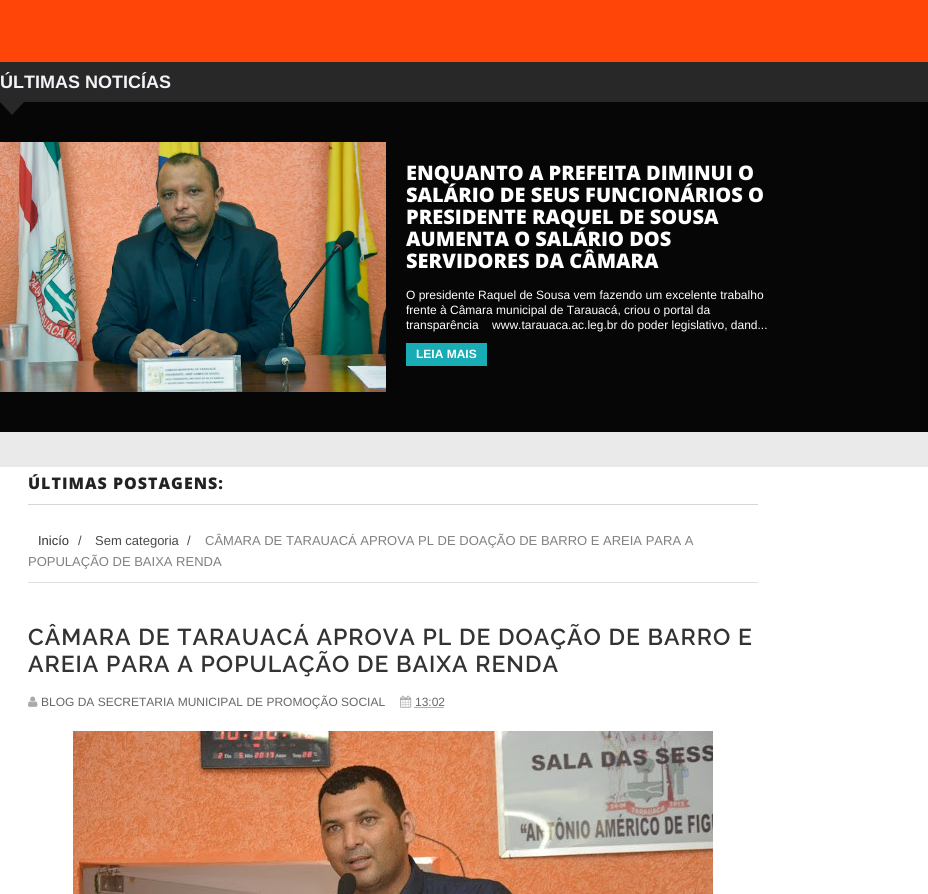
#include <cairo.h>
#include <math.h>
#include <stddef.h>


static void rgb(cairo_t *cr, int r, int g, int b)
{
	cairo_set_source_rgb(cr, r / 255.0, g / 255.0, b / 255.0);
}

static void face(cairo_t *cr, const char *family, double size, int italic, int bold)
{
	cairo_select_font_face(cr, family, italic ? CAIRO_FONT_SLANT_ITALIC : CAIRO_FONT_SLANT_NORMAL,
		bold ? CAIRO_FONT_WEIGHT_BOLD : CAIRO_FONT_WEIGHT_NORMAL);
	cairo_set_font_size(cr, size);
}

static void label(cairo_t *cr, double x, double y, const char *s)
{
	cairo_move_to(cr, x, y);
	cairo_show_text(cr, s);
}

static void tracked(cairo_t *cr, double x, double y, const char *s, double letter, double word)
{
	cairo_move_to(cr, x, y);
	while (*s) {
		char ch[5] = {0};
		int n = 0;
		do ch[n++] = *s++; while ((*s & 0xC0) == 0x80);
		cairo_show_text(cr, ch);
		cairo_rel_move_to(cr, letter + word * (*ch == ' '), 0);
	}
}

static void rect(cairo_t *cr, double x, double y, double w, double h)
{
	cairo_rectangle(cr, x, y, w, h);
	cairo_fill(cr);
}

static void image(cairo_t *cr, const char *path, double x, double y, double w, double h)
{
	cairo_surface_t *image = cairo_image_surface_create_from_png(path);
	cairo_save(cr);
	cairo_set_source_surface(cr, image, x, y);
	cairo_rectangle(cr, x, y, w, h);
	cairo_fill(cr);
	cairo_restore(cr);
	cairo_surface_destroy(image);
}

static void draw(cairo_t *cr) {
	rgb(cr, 255, 255, 255);
	cairo_paint(cr);
	rgb(cr, 255, 69, 7);
	rect(cr, 0, 0, 928, 62);
	rgb(cr, 40, 40, 40);
	rect(cr, 0, 62, 928, 40);
	face(cr, "Liberation Sans", 18, 0, 1);
	rgb(cr, 241, 243, 248);
	label(cr, 0, 88, "ÚLTIMAS NOTICÍAS");
	rgb(cr, 6, 6, 6);
	rect(cr, 0, 102, 928, 330);
	rgb(cr, 40, 40, 40);
	cairo_new_path(cr);
	cairo_move_to(cr, 0, 102);
	cairo_line_to(cr, 24, 102);
	cairo_line_to(cr, 12, 115);
	cairo_close_path(cr);
	cairo_fill(cr);
	image(cr, "image0.png", 0, 142, 386, 250);
	face(cr, "Open Sans ExtraBold", 20, 0, 0);
	rgb(cr, 255, 255, 255);
	label(cr, 406, 180, "ENQUANTO A PREFEITA DIMINUI O");
	label(cr, 406, 202, "SALÁRIO DE SEUS FUNCIONÁRIOS O");
	label(cr, 406, 224, "PRESIDENTE RAQUEL DE SOUSA");
	label(cr, 406, 246, "AUMENTA O SALÁRIO DOS");
	label(cr, 406, 268, "SERVIDORES DA CÂMARA");
	face(cr, "Liberation Sans", 12, 0, 0);
	label(cr, 406, 299, "O presidente Raquel de Sousa vem fazendo um excelente trabalho");
	label(cr, 406, 314, "frente à Câmara municipal de Tarauacá, criou o portal da");
	label(cr, 406, 329, "transparência    www.tarauaca.ac.leg.br do poder legislativo, dand...");
	rgb(cr, 24, 173, 181);
	rect(cr, 406, 343, 81, 23);
	face(cr, "Liberation Sans", 12, 0, 1);
	rgb(cr, 255, 255, 255);
	label(cr, 416, 358, "LEIA MAIS");
	rgb(cr, 234, 234, 234);
	rect(cr, 0, 432, 928, 35);
	rgb(cr, 214, 214, 214);
	rect(cr, 28, 504, 730, 1);
	face(cr, "Open Sans ExtraBold", 16, 0, 0);
	rgb(cr, 34, 34, 34);
	tracked(cr, 28, 489, "ÚLTIMAS POSTAGENS:", 1, 0);
	rgb(cr, 223, 223, 223);
	rect(cr, 28, 582, 730, 1);
	face(cr, "Liberation Sans", 13, 0, 0);
	rgb(cr, 51, 51, 51);
	label(cr, 38, 545, "Inicío");
	rgb(cr, 73, 73, 73);
	label(cr, 78, 545, "/");
	label(cr, 95, 545, "Sem categoria");
	label(cr, 187, 545, "/");
	rgb(cr, 128, 128, 128);
	label(cr, 205, 545, "CÂMARA DE TARAUACÁ APROVA PL DE DOAÇÃO DE BARRO E AREIA PARA A");
	label(cr, 28, 566, "POPULAÇÃO DE BAIXA RENDA");
	face(cr, "Raleway SemiBold", 23, 0, 0);
	rgb(cr, 51, 51, 51);
	tracked(cr, 28, 645, "CÂMARA DE TARAUACÁ APROVA PL DE DOAÇÃO DE BARRO E", 1, 0);
	tracked(cr, 28, 672, "AREIA PARA A POPULAÇÃO DE BAIXA RENDA", 1, 0);
	image(cr, "image1.png", 28, 696, 10, 11);
	face(cr, "Liberation Sans", 12, 0, 0);
	rgb(cr, 102, 102, 102);
	label(cr, 41, 706, "BLOG DA SECRETARIA MUNICIPAL DE PROMOÇÃO SOCIAL");
	image(cr, "image2.png", 400, 695, 12, 13);
	label(cr, 415, 706, "13:02");
	cairo_new_path(cr);
	cairo_move_to(cr, 414.5, 707.5);
	cairo_line_to(cr, 444.5, 707.5);
	cairo_set_line_width(cr, 1);
	cairo_set_dash(cr, (double[]){1, 1}, 2, 0);
	cairo_stroke(cr);
	image(cr, "image3.png", 73, 731, 640, 163);
}

int main(void) {
	cairo_surface_t *surface = cairo_image_surface_create(CAIRO_FORMAT_RGB24, 928, 894);
	cairo_t *cr = cairo_create(surface);
	cairo_font_options_t *options = cairo_font_options_create();
	cairo_font_options_set_hint_metrics(options, CAIRO_HINT_METRICS_OFF);
	cairo_font_options_set_hint_style(options, CAIRO_HINT_STYLE_NONE);
	cairo_set_font_options(cr, options);
	cairo_set_miter_limit(cr, 4);
	draw(cr);
	cairo_surface_write_to_png(surface, "render.png");
	cairo_font_options_destroy(options);
	cairo_destroy(cr);
	cairo_surface_destroy(surface);
	return 0;
}
